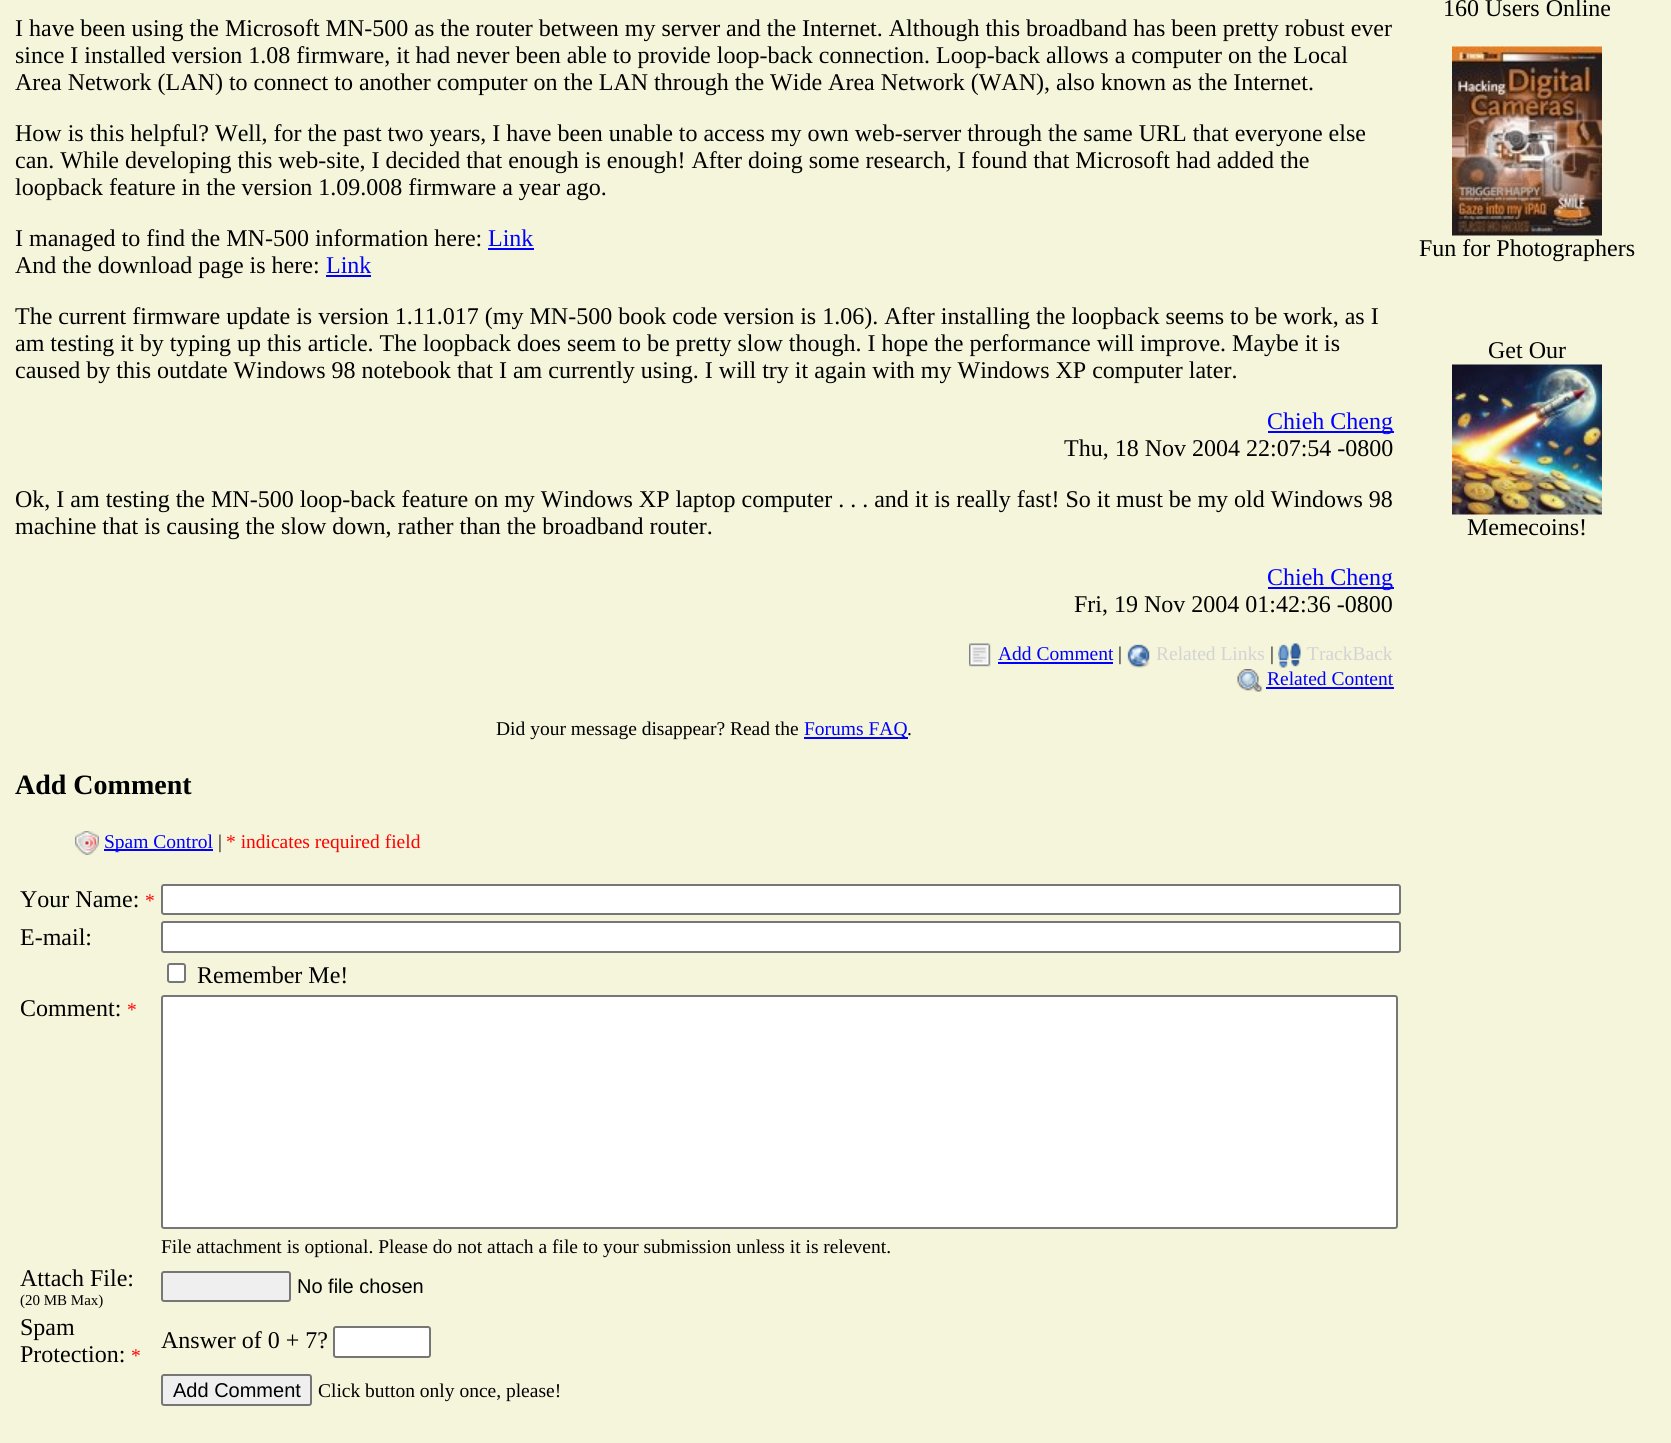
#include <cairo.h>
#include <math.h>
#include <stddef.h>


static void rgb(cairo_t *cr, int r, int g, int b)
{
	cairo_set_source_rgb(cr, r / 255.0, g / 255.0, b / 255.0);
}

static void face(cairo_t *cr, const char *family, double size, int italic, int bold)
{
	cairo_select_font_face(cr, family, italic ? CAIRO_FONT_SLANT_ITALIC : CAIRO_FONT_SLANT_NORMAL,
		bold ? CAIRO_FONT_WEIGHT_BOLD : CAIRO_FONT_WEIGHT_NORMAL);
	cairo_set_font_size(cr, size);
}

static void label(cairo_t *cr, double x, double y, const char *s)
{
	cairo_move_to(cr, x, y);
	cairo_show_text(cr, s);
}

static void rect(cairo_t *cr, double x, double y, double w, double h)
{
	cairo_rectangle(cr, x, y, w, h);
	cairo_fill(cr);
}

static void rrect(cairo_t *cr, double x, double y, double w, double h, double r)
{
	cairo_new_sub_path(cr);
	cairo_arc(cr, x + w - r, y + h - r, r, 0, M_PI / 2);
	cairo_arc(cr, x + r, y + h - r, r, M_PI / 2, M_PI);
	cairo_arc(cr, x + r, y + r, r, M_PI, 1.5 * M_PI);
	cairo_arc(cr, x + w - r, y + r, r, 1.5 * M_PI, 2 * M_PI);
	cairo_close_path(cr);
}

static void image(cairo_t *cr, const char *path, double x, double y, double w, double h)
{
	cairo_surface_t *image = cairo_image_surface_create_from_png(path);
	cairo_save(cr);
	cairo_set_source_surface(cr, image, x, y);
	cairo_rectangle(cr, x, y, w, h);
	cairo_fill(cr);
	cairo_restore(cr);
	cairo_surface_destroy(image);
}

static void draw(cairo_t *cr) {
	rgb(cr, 245, 245, 220);
	cairo_paint(cr);
	face(cr, "Liberation Serif", 24, 0, 0);
	rgb(cr, 0, 0, 0);
	label(cr, 15, 36, "I have been using the Microsoft MN-500 as the router between my server and the Internet. Although this broadband has been pretty robust ever");
	label(cr, 15, 63, "since I installed version 1.08 firmware, it had never been able to provide loop-back connection. Loop-back allows a computer on the Local");
	label(cr, 15, 90, "Area Network (LAN) to connect to another computer on the LAN through the Wide Area Network (WAN), also known as the Internet.");
	label(cr, 15, 141, "How is this helpful? Well, for the past two years, I have been unable to access my own web-server through the same URL that everyone else");
	label(cr, 15, 168, "can. While developing this web-site, I decided that enough is enough! After doing some research, I found that Microsoft had added the");
	label(cr, 15, 195, "loopback feature in the version 1.09.008 firmware a year ago.");
	label(cr, 15, 246, "I managed to find the MN-500 information here:");
	rgb(cr, 0, 0, 255);
	label(cr, 488, 246, "Link");
	rect(cr, 488, 248, 46, 2);
	rgb(cr, 0, 0, 0);
	label(cr, 15, 273, "And the download page is here:");
	rgb(cr, 0, 0, 255);
	label(cr, 326, 273, "Link");
	rect(cr, 326, 275, 45, 2);
	rgb(cr, 0, 0, 0);
	label(cr, 15, 324, "The current firmware update is version 1.11.017 (my MN-500 book code version is 1.06). After installing the loopback seems to be work, as I");
	label(cr, 15, 351, "am testing it by typing up this article. The loopback does seem to be pretty slow though. I hope the performance will improve. Maybe it is");
	label(cr, 15, 378, "caused by this outdate Windows 98 notebook that I am currently using. I will try it again with my Windows XP computer later.");
	rgb(cr, 0, 0, 255);
	rect(cr, 1268, 431, 126, 2);
	label(cr, 1267, 429, "Chieh Cheng");
	rgb(cr, 0, 0, 0);
	label(cr, 1064, 456, "Thu, 18 Nov 2004 22:07:54 -0800");
	label(cr, 15, 507, "Ok, I am testing the MN-500 loop-back feature on my Windows XP laptop computer . . . and it is really fast! So it must be my old Windows 98");
	label(cr, 15, 534, "machine that is causing the slow down, rather than the broadband router.");
	rgb(cr, 0, 0, 255);
	rect(cr, 1268, 587, 126, 2);
	label(cr, 1267, 585, "Chieh Cheng");
	rgb(cr, 0, 0, 0);
	label(cr, 1074, 612, "Fri, 19 Nov 2004 01:42:36 -0800");
	image(cr, "image0.png", 969, 643, 22, 24);
	face(cr, "Liberation Serif", 19.5, 0, 0);
	rgb(cr, 0, 0, 255);
	label(cr, 998, 660, "Add Comment");
	rect(cr, 998, 662, 115, 2);
	rgb(cr, 0, 0, 0);
	label(cr, 1118, 660, "|");
	image(cr, "image1.png", 1127, 644, 23, 24);
	rgb(cr, 211, 211, 211);
	label(cr, 1156, 660, "Related Links");
	rgb(cr, 0, 0, 0);
	label(cr, 1270, 660, "|");
	image(cr, "image2.png", 1278, 643, 23, 25);
	rgb(cr, 211, 211, 211);
	label(cr, 1307, 660, "TrackBack");
	image(cr, "image3.png", 1237, 669, 25, 23);
	rgb(cr, 0, 0, 255);
	label(cr, 1267, 685, "Related Content");
	rect(cr, 1266, 687, 128, 2);
	rgb(cr, 0, 0, 0);
	label(cr, 496, 735, "Did your message disappear? Read the");
	rgb(cr, 0, 0, 255);
	rect(cr, 804, 737, 104, 2);
	label(cr, 804, 735, "Forums FAQ");
	rgb(cr, 0, 0, 0);
	label(cr, 907, 735, ".");
	face(cr, "Liberation Serif", 28, 0, 1);
	label(cr, 15, 794, "Add Comment");
	image(cr, "image4.png", 75, 831, 24, 24);
	rgb(cr, 0, 0, 255);
	rect(cr, 104, 849, 109, 2);
	face(cr, "Liberation Serif", 19.5, 0, 0);
	label(cr, 104, 848, "Spam Control");
	rgb(cr, 0, 0, 0);
	label(cr, 218, 848, "|");
	rgb(cr, 255, 0, 0);
	label(cr, 226, 848, "* indicates required field");
	face(cr, "Liberation Serif", 24, 0, 0);
	rgb(cr, 0, 0, 0);
	label(cr, 20, 907, "Your Name:");
	face(cr, "Liberation Serif", 19.5, 0, 0);
	rgb(cr, 255, 0, 0);
	label(cr, 145, 907, "*");
	rgb(cr, 255, 255, 255);
	rrect(cr, 162, 885, 1238, 29, 2);
	cairo_fill_preserve(cr);
	rgb(cr, 118, 118, 118);
	cairo_stroke(cr);
	face(cr, "Liberation Serif", 24, 0, 0);
	rgb(cr, 0, 0, 0);
	label(cr, 20, 945, "E-mail:");
	rgb(cr, 255, 255, 255);
	rrect(cr, 162, 922, 1238, 30, 2);
	cairo_fill_preserve(cr);
	rgb(cr, 118, 118, 118);
	cairo_stroke(cr);
	rgb(cr, 255, 255, 255);
	rrect(cr, 168, 964, 17, 18, 2);
	cairo_fill_preserve(cr);
	rgb(cr, 118, 118, 118);
	cairo_stroke(cr);
	rgb(cr, 0, 0, 0);
	label(cr, 197, 983, "Remember Me!");
	label(cr, 20, 1016, "Comment:");
	face(cr, "Liberation Serif", 19.5, 0, 0);
	rgb(cr, 255, 0, 0);
	label(cr, 127, 1016, "*");
	rgb(cr, 255, 255, 255);
	rrect(cr, 162, 996, 1235, 232, 2);
	cairo_fill_preserve(cr);
	rgb(cr, 118, 118, 118);
	cairo_stroke(cr);
	rgb(cr, 0, 0, 0);
	label(cr, 161, 1253, "File attachment is optional. Please do not attach a file to your submission unless it is relevent.");
	face(cr, "Liberation Serif", 24, 0, 0);
	label(cr, 20, 1286, "Attach File:");
	face(cr, "Liberation Serif", 15, 0, 0);
	label(cr, 20, 1305, "(20 MB Max)");
	rgb(cr, 239, 239, 239);
	rrect(cr, 162, 1272, 128, 29, 2);
	cairo_fill_preserve(cr);
	rgb(cr, 118, 118, 118);
	cairo_stroke(cr);
	face(cr, "Liberation Sans", 20, 0, 0);
	rgb(cr, 0, 0, 0);
	label(cr, 297, 1293, "No file chosen");
	face(cr, "Liberation Serif", 24, 0, 0);
	label(cr, 20, 1335, "Spam");
	label(cr, 20, 1362, "Protection:");
	face(cr, "Liberation Serif", 19.5, 0, 0);
	rgb(cr, 255, 0, 0);
	label(cr, 131, 1362, "*");
	face(cr, "Liberation Serif", 24, 0, 0);
	rgb(cr, 0, 0, 0);
	label(cr, 161, 1348, "Answer of 0 + 7?");
	rgb(cr, 255, 255, 255);
	rrect(cr, 334, 1327, 96, 30, 2);
	cairo_fill_preserve(cr);
	rgb(cr, 118, 118, 118);
	cairo_stroke(cr);
	rgb(cr, 239, 239, 239);
	rrect(cr, 162, 1375, 149, 30, 2);
	cairo_fill_preserve(cr);
	rgb(cr, 118, 118, 118);
	cairo_stroke(cr);
	face(cr, "Liberation Sans", 20, 0, 0);
	rgb(cr, 0, 0, 0);
	label(cr, 173, 1397, "Add Comment");
	face(cr, "Liberation Serif", 19.5, 0, 0);
	label(cr, 318, 1397, "Click button only once, please!");
	face(cr, "Liberation Serif", 24, 0, 0);
	label(cr, 1443, 16, "160 Users Online");
	image(cr, "image5.png", 1452, 46, 150, 190);
	label(cr, 1419, 256, "Fun for Photographers");
	label(cr, 1488, 358, "Get Our");
	image(cr, "image6.png", 1452, 364, 150, 151);
	label(cr, 1467, 535, "Memecoins!");
}

int main(void) {
	cairo_surface_t *surface = cairo_image_surface_create(CAIRO_FORMAT_RGB24, 1671, 1443);
	cairo_t *cr = cairo_create(surface);
	cairo_font_options_t *options = cairo_font_options_create();
	cairo_font_options_set_hint_metrics(options, CAIRO_HINT_METRICS_OFF);
	cairo_font_options_set_hint_style(options, CAIRO_HINT_STYLE_NONE);
	cairo_set_font_options(cr, options);
	cairo_set_miter_limit(cr, 4);
	draw(cr);
	cairo_surface_write_to_png(surface, "render.png");
	cairo_font_options_destroy(options);
	cairo_destroy(cr);
	cairo_surface_destroy(surface);
	return 0;
}
